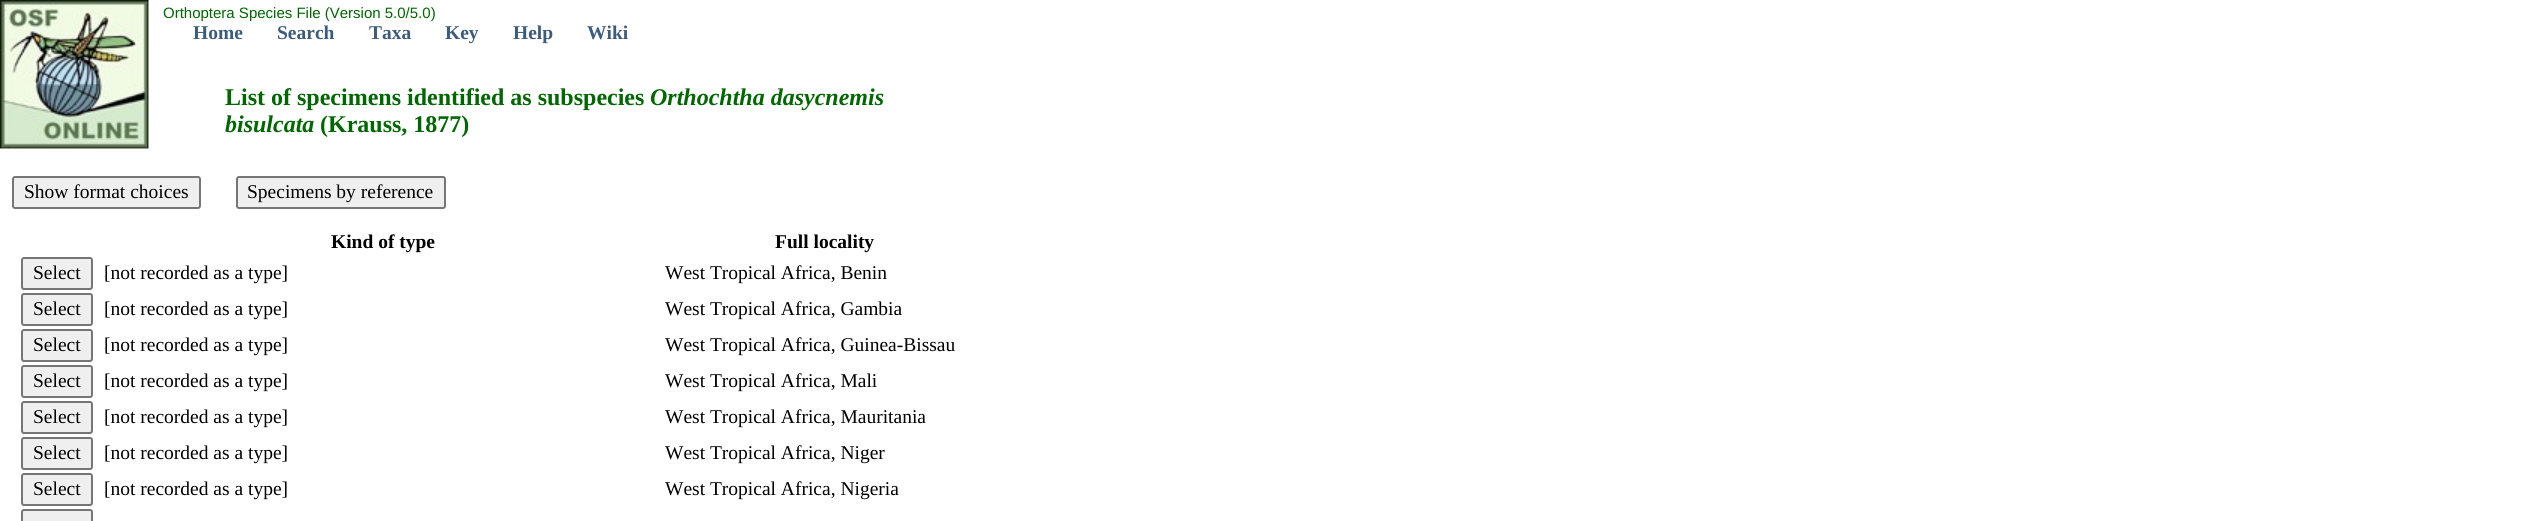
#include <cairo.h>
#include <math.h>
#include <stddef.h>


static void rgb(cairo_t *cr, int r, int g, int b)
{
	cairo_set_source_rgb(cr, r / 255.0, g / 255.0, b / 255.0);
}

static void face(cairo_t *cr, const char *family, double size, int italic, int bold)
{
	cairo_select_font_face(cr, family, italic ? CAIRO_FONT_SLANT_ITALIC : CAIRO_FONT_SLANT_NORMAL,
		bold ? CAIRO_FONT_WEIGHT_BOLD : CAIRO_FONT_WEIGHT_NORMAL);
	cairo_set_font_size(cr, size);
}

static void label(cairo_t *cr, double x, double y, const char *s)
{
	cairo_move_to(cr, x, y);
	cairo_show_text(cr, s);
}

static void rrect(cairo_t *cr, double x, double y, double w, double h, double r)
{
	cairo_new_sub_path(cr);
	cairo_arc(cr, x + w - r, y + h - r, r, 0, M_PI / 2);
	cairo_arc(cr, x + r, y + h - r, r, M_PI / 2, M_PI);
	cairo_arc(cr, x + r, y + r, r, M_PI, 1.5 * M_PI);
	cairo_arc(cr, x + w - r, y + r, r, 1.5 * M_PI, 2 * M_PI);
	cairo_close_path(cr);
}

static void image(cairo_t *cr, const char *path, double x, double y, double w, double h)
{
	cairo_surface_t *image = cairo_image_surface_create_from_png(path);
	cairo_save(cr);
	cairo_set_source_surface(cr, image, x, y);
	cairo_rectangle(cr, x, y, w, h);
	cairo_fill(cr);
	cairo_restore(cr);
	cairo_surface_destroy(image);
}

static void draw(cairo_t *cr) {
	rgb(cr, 255, 255, 255);
	cairo_paint(cr);
	image(cr, "image0.png", 0, 0, 149, 149);
	face(cr, "Liberation Sans", 15, 0, 0);
	rgb(cr, 0, 102, 0);
	label(cr, 163, 18, "Orthoptera Species File (Version 5.0/5.0)");
	face(cr, "Liberation Serif", 19.5, 0, 1);
	rgb(cr, 61, 91, 123);
	label(cr, 193, 39, "Home");
	label(cr, 277, 39, "Search");
	label(cr, 369, 39, "Taxa");
	label(cr, 445, 39, "Key");
	label(cr, 513, 39, "Help");
	label(cr, 587, 39, "Wiki");
	face(cr, "Liberation Serif", 24, 0, 1);
	rgb(cr, 0, 102, 0);
	label(cr, 225, 105, "List of specimens identified as subspecies");
	face(cr, "Liberation Serif", 24, 1, 1);
	label(cr, 650, 105, "Orthochtha dasycnemis");
	label(cr, 225, 132, "bisulcata");
	face(cr, "Liberation Serif", 24, 0, 1);
	label(cr, 320, 132, "(Krauss, 1877)");
	rgb(cr, 239, 239, 239);
	rrect(cr, 13, 177, 187, 31, 2);
	cairo_fill_preserve(cr);
	rgb(cr, 118, 118, 118);
	cairo_stroke(cr);
	face(cr, "Liberation Serif", 19.5, 0, 0);
	rgb(cr, 0, 0, 0);
	label(cr, 24, 198, "Show format choices");
	rgb(cr, 239, 239, 239);
	rrect(cr, 237, 177, 208, 31, 2);
	cairo_fill_preserve(cr);
	rgb(cr, 118, 118, 118);
	cairo_stroke(cr);
	rgb(cr, 0, 0, 0);
	label(cr, 247, 198, "Specimens by reference");
	face(cr, "Liberation Serif", 19.5, 0, 1);
	label(cr, 331, 248, "Kind of type");
	label(cr, 775, 248, "Full locality");
	rgb(cr, 239, 239, 239);
	rrect(cr, 22, 258, 70, 31, 2);
	cairo_fill_preserve(cr);
	rgb(cr, 118, 118, 118);
	cairo_stroke(cr);
	face(cr, "Liberation Serif", 19.5, 0, 0);
	rgb(cr, 0, 0, 0);
	label(cr, 33, 279, "Select");
	label(cr, 104, 279, "[not recorded as a type]");
	label(cr, 665, 279, "West Tropical Africa, Benin");
	rgb(cr, 239, 239, 239);
	rrect(cr, 22, 294, 70, 31, 2);
	cairo_fill_preserve(cr);
	rgb(cr, 118, 118, 118);
	cairo_stroke(cr);
	rgb(cr, 0, 0, 0);
	label(cr, 33, 315, "Select");
	label(cr, 104, 315, "[not recorded as a type]");
	label(cr, 665, 315, "West Tropical Africa, Gambia");
	rgb(cr, 239, 239, 239);
	rrect(cr, 22, 330, 70, 31, 2);
	cairo_fill_preserve(cr);
	rgb(cr, 118, 118, 118);
	cairo_stroke(cr);
	rgb(cr, 0, 0, 0);
	label(cr, 33, 351, "Select");
	label(cr, 104, 351, "[not recorded as a type]");
	label(cr, 665, 351, "West Tropical Africa, Guinea-Bissau");
	rgb(cr, 239, 239, 239);
	rrect(cr, 22, 366, 70, 31, 2);
	cairo_fill_preserve(cr);
	rgb(cr, 118, 118, 118);
	cairo_stroke(cr);
	rgb(cr, 0, 0, 0);
	label(cr, 33, 387, "Select");
	label(cr, 104, 387, "[not recorded as a type]");
	label(cr, 665, 387, "West Tropical Africa, Mali");
	rgb(cr, 239, 239, 239);
	rrect(cr, 22, 402, 70, 31, 2);
	cairo_fill_preserve(cr);
	rgb(cr, 118, 118, 118);
	cairo_stroke(cr);
	rgb(cr, 0, 0, 0);
	label(cr, 33, 423, "Select");
	label(cr, 104, 423, "[not recorded as a type]");
	label(cr, 665, 423, "West Tropical Africa, Mauritania");
	rgb(cr, 239, 239, 239);
	rrect(cr, 22, 438, 70, 31, 2);
	cairo_fill_preserve(cr);
	rgb(cr, 118, 118, 118);
	cairo_stroke(cr);
	rgb(cr, 0, 0, 0);
	label(cr, 33, 459, "Select");
	label(cr, 104, 459, "[not recorded as a type]");
	label(cr, 665, 459, "West Tropical Africa, Niger");
	rgb(cr, 239, 239, 239);
	rrect(cr, 22, 474, 70, 31, 2);
	cairo_fill_preserve(cr);
	rgb(cr, 118, 118, 118);
	cairo_stroke(cr);
	rgb(cr, 0, 0, 0);
	label(cr, 33, 495, "Select");
	label(cr, 104, 495, "[not recorded as a type]");
	label(cr, 665, 495, "West Tropical Africa, Nigeria");
	rgb(cr, 239, 239, 239);
	rrect(cr, 22, 510, 70, 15, 2);
	cairo_fill_preserve(cr);
	rgb(cr, 118, 118, 118);
	cairo_stroke(cr);
}

int main(void) {
	cairo_surface_t *surface = cairo_image_surface_create(CAIRO_FORMAT_RGB24, 2542, 521);
	cairo_t *cr = cairo_create(surface);
	cairo_font_options_t *options = cairo_font_options_create();
	cairo_font_options_set_hint_metrics(options, CAIRO_HINT_METRICS_OFF);
	cairo_font_options_set_hint_style(options, CAIRO_HINT_STYLE_NONE);
	cairo_set_font_options(cr, options);
	cairo_set_miter_limit(cr, 4);
	draw(cr);
	cairo_surface_write_to_png(surface, "render.png");
	cairo_font_options_destroy(options);
	cairo_destroy(cr);
	cairo_surface_destroy(surface);
	return 0;
}
